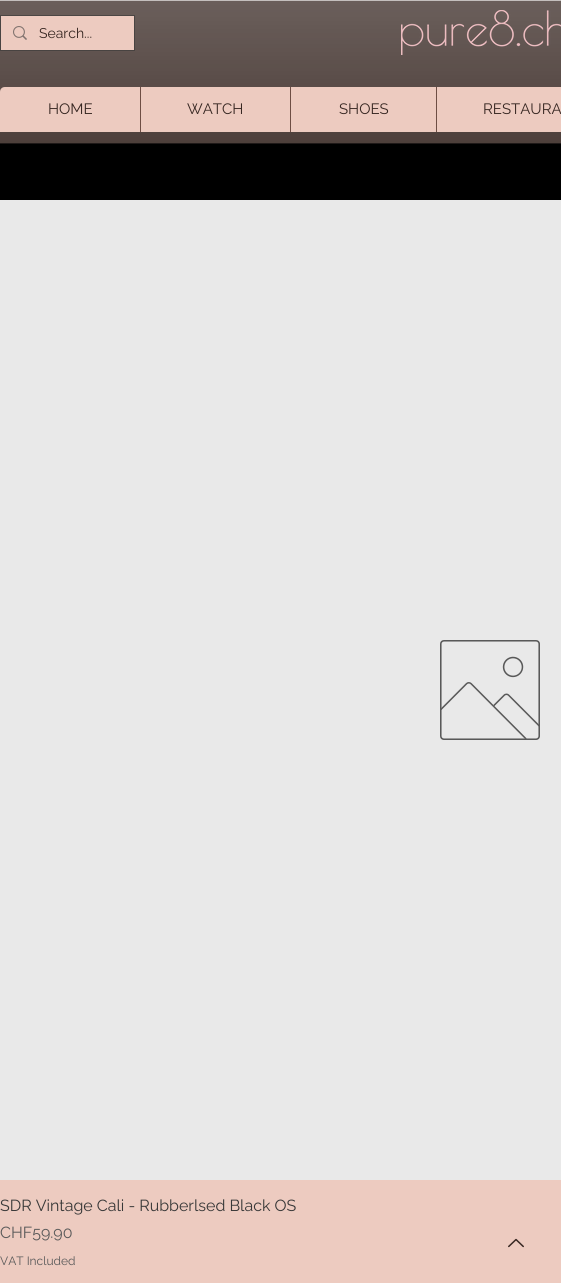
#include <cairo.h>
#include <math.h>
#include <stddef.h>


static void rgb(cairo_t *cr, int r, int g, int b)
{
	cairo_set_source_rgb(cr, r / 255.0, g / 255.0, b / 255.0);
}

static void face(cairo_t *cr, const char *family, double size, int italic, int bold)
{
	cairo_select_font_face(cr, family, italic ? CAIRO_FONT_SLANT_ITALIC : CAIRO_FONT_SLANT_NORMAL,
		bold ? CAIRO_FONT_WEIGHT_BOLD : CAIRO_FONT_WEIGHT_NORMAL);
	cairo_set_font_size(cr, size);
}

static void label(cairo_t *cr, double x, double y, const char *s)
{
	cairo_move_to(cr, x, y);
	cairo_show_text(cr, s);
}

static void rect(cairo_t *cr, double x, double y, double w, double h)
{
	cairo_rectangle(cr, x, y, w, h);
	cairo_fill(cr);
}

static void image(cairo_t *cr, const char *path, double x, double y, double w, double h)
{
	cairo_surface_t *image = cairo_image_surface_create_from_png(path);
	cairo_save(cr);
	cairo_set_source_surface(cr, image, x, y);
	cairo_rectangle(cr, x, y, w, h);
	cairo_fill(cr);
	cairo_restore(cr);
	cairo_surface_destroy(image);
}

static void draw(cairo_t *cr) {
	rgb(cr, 0, 0, 0);
	cairo_paint(cr);
	rgb(cr, 55, 39, 34);
	rect(cr, 0, 1, 561, 142);
	image(cr, "image0.png", 0, 1, 561, 142);
	rgb(cr, 31, 25, 24);
	rect(cr, 0, 143, 561, 1);
	rgb(cr, 196, 191, 189);
	rect(cr, 0, 0, 561, 1);
	cairo_rectangle(cr, 0.5, 15.5, 134, 35);
	cairo_set_source_rgba(cr, 0.22, 0.22, 0.22, 0.6);
	cairo_set_line_width(cr, 1);
	cairo_stroke(cr);
	rgb(cr, 237, 203, 192);
	rect(cr, 1, 16, 133, 34);
	image(cr, "image1.png", 13, 26, 14, 14);
	face(cr, "Raleway", 14, 0, 0);
	rgb(cr, 55, 39, 34);
	label(cr, 39, 38, "Search...");
	image(cr, "image2.png", 401, 10, 160, 45);
	rgb(cr, 237, 203, 192);
	cairo_new_path(cr);
	cairo_move_to(cr, 5, 87);
	cairo_line_to(cr, 561, 87);
	cairo_curve_to(cr, 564, 87, 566, 89, 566, 92);
	cairo_line_to(cr, 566, 132);
	cairo_line_to(cr, 0, 132);
	cairo_line_to(cr, 0, 92);
	cairo_curve_to(cr, 0, 89, 2, 87, 5, 87);
	cairo_close_path(cr);
	cairo_fill(cr);
	face(cr, "Raleway", 15, 0, 0);
	rgb(cr, 55, 39, 34);
	label(cr, 48, 114, "HOME");
	rgb(cr, 110, 78, 68);
	rect(cr, 140, 87, 1, 45);
	rgb(cr, 55, 39, 34);
	label(cr, 187, 114, "WATCH");
	rgb(cr, 110, 78, 68);
	rect(cr, 290, 87, 1, 45);
	rgb(cr, 55, 39, 34);
	label(cr, 339, 114, "SHOES");
	rgb(cr, 110, 78, 68);
	rect(cr, 436, 87, 1, 45);
	rgb(cr, 55, 39, 34);
	label(cr, 483, 114, "RESTAURA");
	rgb(cr, 237, 203, 192);
	rect(cr, 0, 1180, 561, 103);
	rgb(cr, 233, 233, 233);
	rect(cr, 0, 200, 561, 980);
	image(cr, "image3.png", 440, 640, 100, 100);
	face(cr, "Raleway", 16, 0, 0);
	rgb(cr, 56, 56, 56);
	label(cr, 0, 1211, "SDR Vintage Cali - Rubberlsed Black OS");
	rgb(cr, 89, 89, 89);
	label(cr, 0, 1238, "CHF59.90");
	face(cr, "Raleway", 12, 0, 0);
	label(cr, 0, 1265, "VAT Included");
	image(cr, "image4.png", 508, 1238, 16, 10);
}

int main(void) {
	cairo_surface_t *surface = cairo_image_surface_create(CAIRO_FORMAT_RGB24, 561, 1283);
	cairo_t *cr = cairo_create(surface);
	cairo_font_options_t *options = cairo_font_options_create();
	cairo_font_options_set_hint_metrics(options, CAIRO_HINT_METRICS_OFF);
	cairo_font_options_set_hint_style(options, CAIRO_HINT_STYLE_NONE);
	cairo_set_font_options(cr, options);
	cairo_set_miter_limit(cr, 4);
	draw(cr);
	cairo_surface_write_to_png(surface, "render.png");
	cairo_font_options_destroy(options);
	cairo_destroy(cr);
	cairo_surface_destroy(surface);
	return 0;
}
